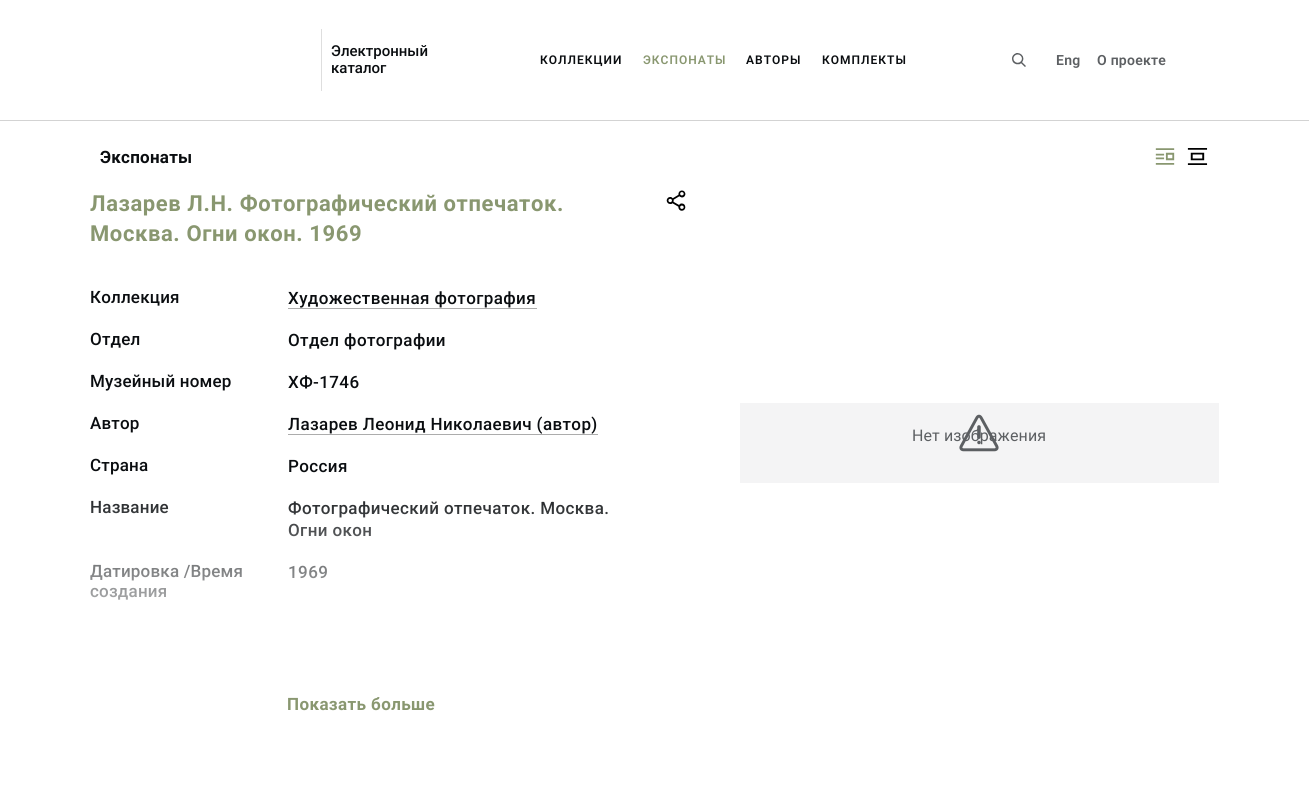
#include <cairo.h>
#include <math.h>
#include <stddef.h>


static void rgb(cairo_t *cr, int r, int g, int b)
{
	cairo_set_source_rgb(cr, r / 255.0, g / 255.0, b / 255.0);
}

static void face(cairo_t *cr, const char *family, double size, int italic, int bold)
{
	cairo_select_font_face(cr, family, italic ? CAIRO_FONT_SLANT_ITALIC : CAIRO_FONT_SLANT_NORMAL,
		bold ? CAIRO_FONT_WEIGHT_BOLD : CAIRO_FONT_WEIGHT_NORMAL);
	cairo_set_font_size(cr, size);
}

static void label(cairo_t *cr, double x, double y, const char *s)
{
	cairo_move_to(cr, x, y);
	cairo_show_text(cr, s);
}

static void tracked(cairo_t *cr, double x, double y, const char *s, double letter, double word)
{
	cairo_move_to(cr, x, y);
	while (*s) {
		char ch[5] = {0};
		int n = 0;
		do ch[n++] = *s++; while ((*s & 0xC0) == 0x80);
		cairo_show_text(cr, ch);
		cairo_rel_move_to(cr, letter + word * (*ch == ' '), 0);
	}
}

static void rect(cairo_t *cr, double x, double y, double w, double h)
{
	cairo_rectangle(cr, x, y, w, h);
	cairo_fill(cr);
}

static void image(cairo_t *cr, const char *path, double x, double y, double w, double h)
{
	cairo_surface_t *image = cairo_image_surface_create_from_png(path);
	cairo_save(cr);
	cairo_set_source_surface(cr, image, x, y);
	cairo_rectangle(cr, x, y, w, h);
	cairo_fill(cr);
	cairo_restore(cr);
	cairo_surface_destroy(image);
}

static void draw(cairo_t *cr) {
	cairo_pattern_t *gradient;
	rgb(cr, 255, 255, 255);
	cairo_paint(cr);
	rgb(cr, 211, 211, 211);
	rect(cr, 0, 120, 1309, 1);
	rgb(cr, 222, 222, 222);
	rect(cr, 321, 29, 1, 62);
	face(cr, "Roboto Medium", 15, 0, 0);
	rgb(cr, 10, 13, 16);
	label(cr, 331, 56, "Электронный");
	label(cr, 331, 73, "каталог");
	face(cr, "Roboto SemiBold", 12, 0, 0);
	tracked(cr, 540, 64, "КОЛЛЕКЦИИ", 1, 0);
	rgb(cr, 137, 151, 112);
	tracked(cr, 643, 64, "ЭКСПОНАТЫ", 1, 0);
	rgb(cr, 10, 13, 16);
	tracked(cr, 746, 64, "АВТОРЫ", 1, 0);
	tracked(cr, 822, 64, "КОМПЛЕКТЫ", 1, 0);
	image(cr, "image0.png", 1012, 53, 14, 14);
	face(cr, "Roboto SemiBold", 14, 0, 0);
	rgb(cr, 92, 95, 98);
	tracked(cr, 1056, 65, "Eng", 0.25, 0);
	tracked(cr, 1097, 65, "О проекте", 0.25, 0);
	face(cr, "Roboto", 17, 0, 1);
	rgb(cr, 10, 13, 16);
	tracked(cr, 100, 163, "Экспонаты", 0.25, 0);
	image(cr, "image1.png", 1155, 148, 20, 17);
	image(cr, "image2.png", 1187, 148, 21, 17);
	face(cr, "Roboto", 22, 0, 1);
	rgb(cr, 137, 151, 112);
	tracked(cr, 90, 211, "Лазарев Л.Н. Фотографический отпечаток.", 0.6, 0);
	tracked(cr, 90, 241, "Москва. Огни окон. 1969", 0.6, 0);
	image(cr, "image3.png", 666, 190, 20, 21);
	face(cr, "Roboto Medium", 17, 0, 0);
	rgb(cr, 10, 13, 16);
	tracked(cr, 90, 303, "Коллекция", 0.2, 0);
	tracked(cr, 288, 304, "Художественная фотография", 0.4, 0);
	rgb(cr, 172, 172, 172);
	rect(cr, 288, 308, 249, 1);
	rgb(cr, 10, 13, 16);
	tracked(cr, 90, 345, "Отдел", 0.2, 0);
	tracked(cr, 288, 346, "Отдел фотографии", 0.4, 0);
	tracked(cr, 90, 387, "Музейный номер", 0.2, 0);
	tracked(cr, 288, 388, "ХФ-1746", 0.4, 0);
	tracked(cr, 90, 429, "Автор", 0.2, 0);
	tracked(cr, 288, 430, "Лазарев Леонид Николаевич (автор)", 0.4, 0);
	rgb(cr, 172, 172, 172);
	rect(cr, 288, 434, 310, 1);
	rgb(cr, 10, 13, 16);
	tracked(cr, 90, 471, "Страна", 0.2, 0);
	tracked(cr, 288, 472, "Россия", 0.4, 0);
	tracked(cr, 90, 513, "Название", 0.2, 0);
	tracked(cr, 288, 514, "Фотографический отпечаток. Москва.", 0.4, 0);
	tracked(cr, 288, 536, "Огни окон", 0.4, 0);
	tracked(cr, 90, 577, "Датировка /Время", 0.2, 0);
	tracked(cr, 90, 597, "создания", 0.2, 0);
	tracked(cr, 288, 578, "1969", 0.4, 0);
	gradient = cairo_pattern_create_linear(361, 479, 361, 719);
	cairo_pattern_add_color_stop_rgba(gradient, 0, 1, 1, 1, 0.01);
	cairo_pattern_add_color_stop_rgba(gradient, 0.8, 1, 1, 1, 1);
	cairo_set_source(cr, gradient);
	cairo_pattern_destroy(gradient);
	rect(cr, 90, 501, 519, 99);
	face(cr, "Roboto", 17, 0, 1);
	rgb(cr, 137, 151, 112);
	tracked(cr, 287, 710, "Показать больше", 0.4, 0);
	rgb(cr, 244, 244, 245);
	rect(cr, 740, 403, 479, 80);
	face(cr, "Roboto", 16, 0, 0);
	rgb(cr, 92, 95, 98);
	tracked(cr, 912, 441, "Нет изображения", 0.1, 0);
	image(cr, "image4.png", 959, 414, 40, 38);
}

int main(void) {
	cairo_surface_t *surface = cairo_image_surface_create(CAIRO_FORMAT_RGB24, 1309, 805);
	cairo_t *cr = cairo_create(surface);
	cairo_font_options_t *options = cairo_font_options_create();
	cairo_font_options_set_hint_metrics(options, CAIRO_HINT_METRICS_OFF);
	cairo_font_options_set_hint_style(options, CAIRO_HINT_STYLE_NONE);
	cairo_set_font_options(cr, options);
	cairo_set_miter_limit(cr, 4);
	draw(cr);
	cairo_surface_write_to_png(surface, "render.png");
	cairo_font_options_destroy(options);
	cairo_destroy(cr);
	cairo_surface_destroy(surface);
	return 0;
}
